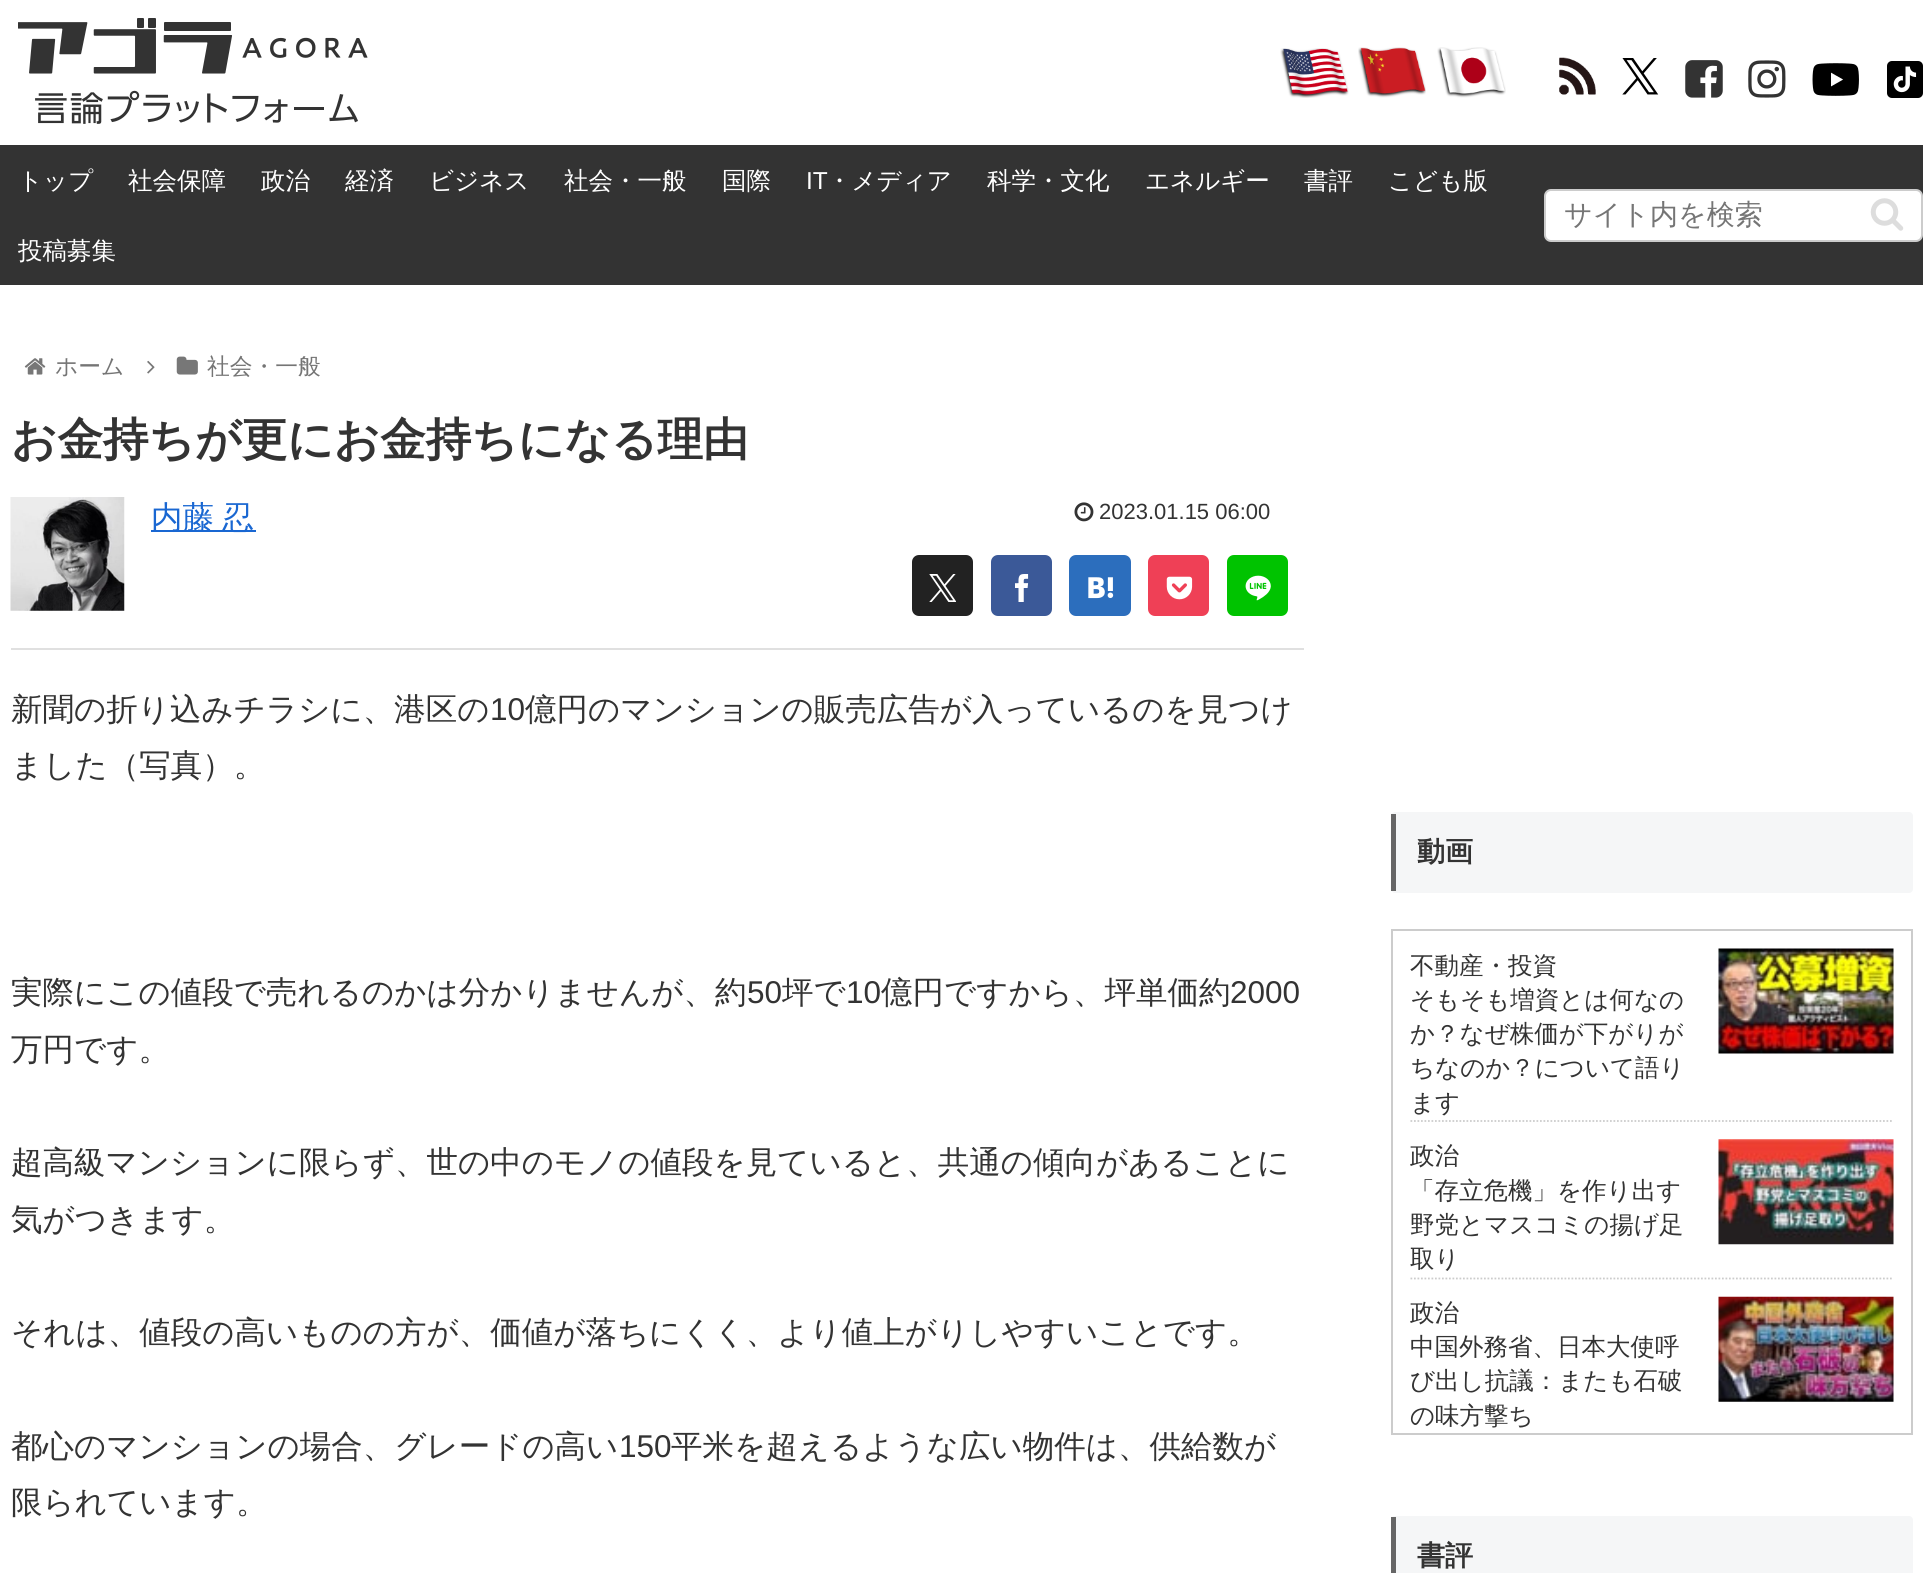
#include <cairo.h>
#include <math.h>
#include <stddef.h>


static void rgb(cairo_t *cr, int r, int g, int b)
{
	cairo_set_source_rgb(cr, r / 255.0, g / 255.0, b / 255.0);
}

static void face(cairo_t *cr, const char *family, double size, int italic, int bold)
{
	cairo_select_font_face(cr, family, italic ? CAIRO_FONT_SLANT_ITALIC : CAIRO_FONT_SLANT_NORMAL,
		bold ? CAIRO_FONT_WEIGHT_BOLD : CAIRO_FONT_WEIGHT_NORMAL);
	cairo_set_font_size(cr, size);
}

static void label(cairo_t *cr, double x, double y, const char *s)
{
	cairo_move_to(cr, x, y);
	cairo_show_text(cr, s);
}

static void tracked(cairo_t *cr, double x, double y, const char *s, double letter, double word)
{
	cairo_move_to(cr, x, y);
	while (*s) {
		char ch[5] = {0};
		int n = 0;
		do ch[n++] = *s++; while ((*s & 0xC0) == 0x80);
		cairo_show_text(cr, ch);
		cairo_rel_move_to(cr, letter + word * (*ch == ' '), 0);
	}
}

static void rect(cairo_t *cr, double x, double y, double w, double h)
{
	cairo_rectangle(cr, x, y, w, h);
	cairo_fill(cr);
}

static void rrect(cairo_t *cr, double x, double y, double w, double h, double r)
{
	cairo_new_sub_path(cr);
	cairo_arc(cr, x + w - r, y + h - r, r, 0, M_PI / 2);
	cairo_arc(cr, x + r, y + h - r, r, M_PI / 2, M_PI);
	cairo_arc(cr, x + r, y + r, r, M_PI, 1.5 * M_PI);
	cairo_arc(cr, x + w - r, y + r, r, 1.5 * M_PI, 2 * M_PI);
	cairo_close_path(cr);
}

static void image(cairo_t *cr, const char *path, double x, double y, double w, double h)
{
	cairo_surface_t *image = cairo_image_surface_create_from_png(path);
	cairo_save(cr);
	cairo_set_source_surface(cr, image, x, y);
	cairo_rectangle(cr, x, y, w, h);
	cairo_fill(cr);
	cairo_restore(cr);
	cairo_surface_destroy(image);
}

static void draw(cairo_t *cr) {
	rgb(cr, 255, 255, 255);
	cairo_paint(cr);
	image(cr, "image0.png", 18, 18, 350, 106);
	image(cr, "image1.png", 1280, 48, 69, 50);
	image(cr, "image2.png", 1358, 47, 68, 51);
	image(cr, "image3.png", 1437, 47, 69, 51);
	image(cr, "image4.png", 1559, 57, 37, 38);
	image(cr, "image5.png", 1622, 58, 37, 37);
	image(cr, "image6.png", 1685, 60, 38, 38);
	image(cr, "image7.png", 1748, 60, 38, 38);
	image(cr, "image8.png", 1812, 63, 47, 33);
	image(cr, "image9.png", 1887, 61, 36, 37);
	rgb(cr, 51, 51, 51);
	rect(cr, 0, 145, 1923, 140);
	face(cr, "WenQuanYi Zen Hei Medium", 24.5, 0, 0);
	rgb(cr, 255, 255, 255);
	label(cr, 18, 189, "トップ");
	label(cr, 128, 189, "社会保障");
	label(cr, 261, 189, "政治");
	label(cr, 345, 189, "経済");
	label(cr, 429, 189, "ビジネス");
	label(cr, 564, 189, "社会・一般");
	label(cr, 722, 189, "国際");
	face(cr, "Liberation Sans", 24.5, 0, 0);
	label(cr, 806, 189, "IT");
	face(cr, "WenQuanYi Zen Hei Medium", 24.5, 0, 0);
	label(cr, 827, 189, "・メディア");
	label(cr, 987, 189, "科学・文化");
	label(cr, 1145, 189, "エネルギー");
	label(cr, 1304, 189, "書評");
	label(cr, 1388, 189, "こども版");
	label(cr, 18, 259, "投稿募集");
	rrect(cr, 1545, 190, 377, 51, 6);
	cairo_fill_preserve(cr);
	rgb(cr, 204, 204, 204);
	cairo_stroke(cr);
	face(cr, "WenQuanYi Zen Hei Medium", 28, 0, 0);
	rgb(cr, 117, 117, 117);
	label(cr, 1564, 224, "サイト内を検索");
	image(cr, "image10.png", 1870, 198, 34, 33);
	image(cr, "image11.png", 24, 358, 22, 17);
	face(cr, "WenQuanYi Zen Hei Medium", 22.75, 0, 0);
	label(cr, 55, 374, "ホーム");
	image(cr, "image12.png", 147, 360, 8, 14);
	image(cr, "image13.png", 176, 356, 22, 19);
	label(cr, 207, 374, "社会・一般");
	face(cr, "WenQuanYi Zen Hei", 45.5, 0, 1);
	rgb(cr, 51, 51, 51);
	label(cr, 11, 455, "お金持ちが更にお金持ちになる理由");
	rgb(cr, 224, 224, 224);
	rect(cr, 11, 648, 1293, 2);
	image(cr, "image14.png", 10, 497, 115, 114);
	rgb(cr, 25, 103, 210);
	rect(cr, 151, 530, 105, 2);
	face(cr, "WenQuanYi Zen Hei Medium", 31.5, 0, 0);
	tracked(cr, 151, 528, "内藤 忍", 0, -1);
	image(cr, "image15.png", 1074, 502, 20, 20);
	face(cr, "Liberation Sans", 22, 0, 0);
	rgb(cr, 51, 51, 51);
	label(cr, 1099, 519, "2023.01.15 06:00");
	rgb(cr, 34, 34, 34);
	rrect(cr, 912, 555, 61, 61, 7);
	cairo_fill(cr);
	image(cr, "image16.png", 929, 574, 27, 28);
	rgb(cr, 59, 89, 152);
	rrect(cr, 991, 555, 61, 61, 7);
	cairo_fill(cr);
	image(cr, "image17.png", 1015, 574, 14, 28);
	rgb(cr, 44, 110, 189);
	rrect(cr, 1069, 555, 62, 61, 7);
	cairo_fill(cr);
	image(cr, "image18.png", 1088, 577, 26, 22);
	rgb(cr, 239, 64, 86);
	rrect(cr, 1148, 555, 61, 61, 7);
	cairo_fill(cr);
	image(cr, "image19.png", 1166, 576, 27, 24);
	rgb(cr, 0, 195, 0);
	rrect(cr, 1227, 555, 61, 61, 7);
	cairo_fill(cr);
	image(cr, "image20.png", 1245, 575, 26, 26);
	face(cr, "WenQuanYi Zen Hei Medium", 31.5, 0, 0);
	rgb(cr, 51, 51, 51);
	label(cr, 11, 720, "新聞の折り込みチラシに、港区の");
	face(cr, "Liberation Sans", 31.5, 0, 0);
	label(cr, 490, 720, "10");
	face(cr, "WenQuanYi Zen Hei Medium", 31.5, 0, 0);
	label(cr, 525, 720, "億円のマンションの販売広告が入っているのを見つけ");
	label(cr, 11, 776, "ました（写真）。");
	label(cr, 11, 1003, "実際にこの値段で売れるのかは分かりませんが、約");
	face(cr, "Liberation Sans", 31.5, 0, 0);
	label(cr, 747, 1003, "50");
	face(cr, "WenQuanYi Zen Hei Medium", 31.5, 0, 0);
	label(cr, 782, 1003, "坪で");
	face(cr, "Liberation Sans", 31.5, 0, 0);
	label(cr, 846, 1003, "10");
	face(cr, "WenQuanYi Zen Hei Medium", 31.5, 0, 0);
	label(cr, 881, 1003, "億円ですから、坪単価約");
	face(cr, "Liberation Sans", 31.5, 0, 0);
	label(cr, 1230, 1003, "2000");
	face(cr, "WenQuanYi Zen Hei Medium", 31.5, 0, 0);
	label(cr, 11, 1060, "万円です。");
	label(cr, 11, 1173, "超高級マンションに限らず、世の中のモノの値段を見ていると、共通の傾向があることに");
	label(cr, 11, 1230, "気がつきます。");
	label(cr, 11, 1343, "それは、値段の高いものの方が、価値が落ちにくく、より値上がりしやすいことです。");
	label(cr, 11, 1457, "都心のマンションの場合、グレードの高い");
	face(cr, "Liberation Sans", 31.5, 0, 0);
	label(cr, 619, 1457, "150");
	face(cr, "WenQuanYi Zen Hei Medium", 31.5, 0, 0);
	label(cr, 671, 1457, "平米を超えるような広い物件は、供給数が");
	label(cr, 11, 1513, "限られています。");
	rgb(cr, 245, 246, 247);
	rrect(cr, 1391, 812, 522, 81, 4);
	cairo_fill(cr);
	rgb(cr, 102, 102, 102);
	rect(cr, 1391, 814, 5, 77);
	face(cr, "WenQuanYi Zen Hei", 28, 0, 1);
	rgb(cr, 51, 51, 51);
	label(cr, 1417, 861, "動画");
	cairo_rectangle(cr, 1392, 930, 520, 504);
	rgb(cr, 204, 204, 204);
	cairo_stroke(cr);
	cairo_new_path(cr);
	cairo_move_to(cr, 1410.5, 1121);
	cairo_line_to(cr, 1893.5, 1121);
	cairo_set_line_width(cr, 1.8);
	cairo_set_dash(cr, (double[]){1.75, 1.75}, 2, 0);
	cairo_stroke(cr);
	face(cr, "WenQuanYi Zen Hei Medium", 24.5, 0, 0);
	rgb(cr, 51, 51, 51);
	label(cr, 1410, 974, "不動産・投資");
	image(cr, "image21.png", 1718, 948, 176, 106);
	label(cr, 1410, 1008, "そもそも増資とは何なの");
	label(cr, 1410, 1042, "か？なぜ株価が下がりが");
	label(cr, 1410, 1076, "ちなのか？について語り");
	label(cr, 1410, 1111, "ます");
	cairo_new_path(cr);
	cairo_move_to(cr, 1410.5, 1278.5);
	cairo_line_to(cr, 1893.5, 1278.5);
	rgb(cr, 204, 204, 204);
	cairo_stroke(cr);
	rgb(cr, 51, 51, 51);
	label(cr, 1410, 1164, "政治");
	image(cr, "image22.png", 1718, 1139, 176, 106);
	label(cr, 1410, 1199, "「存立危機」を作り出す");
	label(cr, 1410, 1233, "野党とマスコミの揚げ足");
	label(cr, 1410, 1267, "取り");
	label(cr, 1410, 1321, "政治");
	image(cr, "image23.png", 1718, 1296, 176, 106);
	label(cr, 1410, 1355, "中国外務省、日本大使呼");
	label(cr, 1410, 1389, "び出し抗議：またも石破");
	label(cr, 1410, 1424, "の味方撃ち");
	rgb(cr, 245, 246, 247);
	rrect(cr, 1391, 1516, 522, 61, 4);
	cairo_fill(cr);
	rgb(cr, 102, 102, 102);
	rect(cr, 1391, 1517, 5, 56);
	face(cr, "WenQuanYi Zen Hei", 28, 0, 1);
	rgb(cr, 51, 51, 51);
	label(cr, 1417, 1565, "書評");
}

int main(void) {
	cairo_surface_t *surface = cairo_image_surface_create(CAIRO_FORMAT_RGB24, 1923, 1573);
	cairo_t *cr = cairo_create(surface);
	cairo_font_options_t *options = cairo_font_options_create();
	cairo_font_options_set_hint_metrics(options, CAIRO_HINT_METRICS_OFF);
	cairo_font_options_set_hint_style(options, CAIRO_HINT_STYLE_NONE);
	cairo_set_font_options(cr, options);
	cairo_set_miter_limit(cr, 4);
	draw(cr);
	cairo_surface_write_to_png(surface, "render.png");
	cairo_font_options_destroy(options);
	cairo_destroy(cr);
	cairo_surface_destroy(surface);
	return 0;
}
